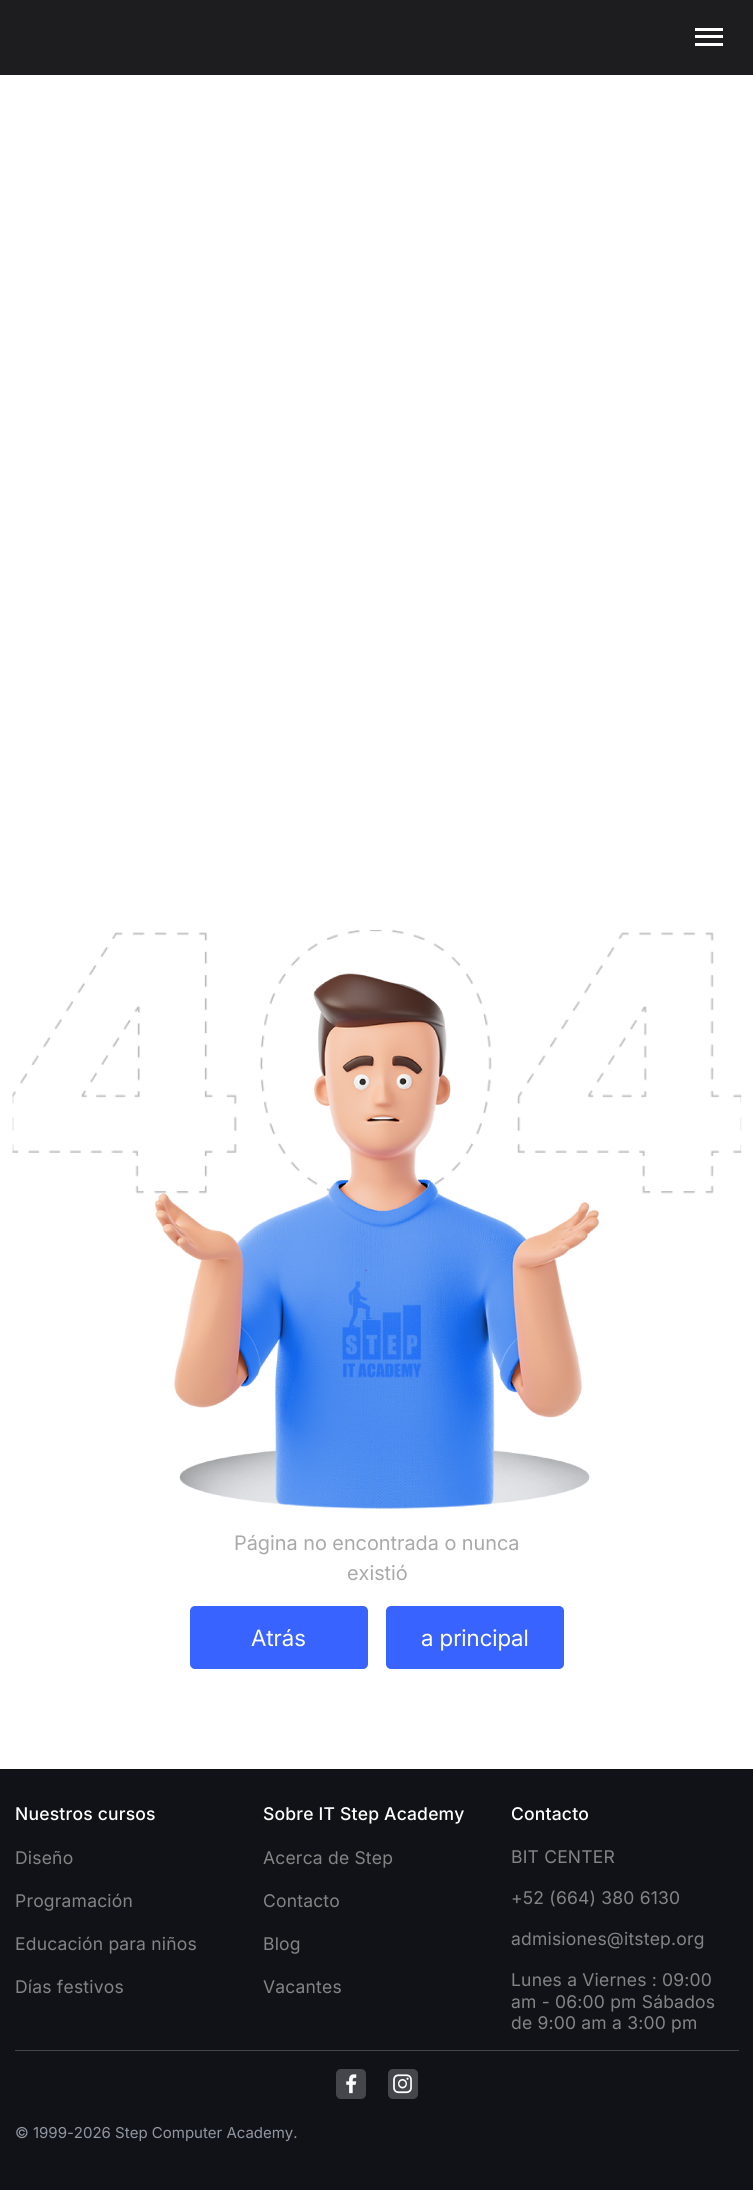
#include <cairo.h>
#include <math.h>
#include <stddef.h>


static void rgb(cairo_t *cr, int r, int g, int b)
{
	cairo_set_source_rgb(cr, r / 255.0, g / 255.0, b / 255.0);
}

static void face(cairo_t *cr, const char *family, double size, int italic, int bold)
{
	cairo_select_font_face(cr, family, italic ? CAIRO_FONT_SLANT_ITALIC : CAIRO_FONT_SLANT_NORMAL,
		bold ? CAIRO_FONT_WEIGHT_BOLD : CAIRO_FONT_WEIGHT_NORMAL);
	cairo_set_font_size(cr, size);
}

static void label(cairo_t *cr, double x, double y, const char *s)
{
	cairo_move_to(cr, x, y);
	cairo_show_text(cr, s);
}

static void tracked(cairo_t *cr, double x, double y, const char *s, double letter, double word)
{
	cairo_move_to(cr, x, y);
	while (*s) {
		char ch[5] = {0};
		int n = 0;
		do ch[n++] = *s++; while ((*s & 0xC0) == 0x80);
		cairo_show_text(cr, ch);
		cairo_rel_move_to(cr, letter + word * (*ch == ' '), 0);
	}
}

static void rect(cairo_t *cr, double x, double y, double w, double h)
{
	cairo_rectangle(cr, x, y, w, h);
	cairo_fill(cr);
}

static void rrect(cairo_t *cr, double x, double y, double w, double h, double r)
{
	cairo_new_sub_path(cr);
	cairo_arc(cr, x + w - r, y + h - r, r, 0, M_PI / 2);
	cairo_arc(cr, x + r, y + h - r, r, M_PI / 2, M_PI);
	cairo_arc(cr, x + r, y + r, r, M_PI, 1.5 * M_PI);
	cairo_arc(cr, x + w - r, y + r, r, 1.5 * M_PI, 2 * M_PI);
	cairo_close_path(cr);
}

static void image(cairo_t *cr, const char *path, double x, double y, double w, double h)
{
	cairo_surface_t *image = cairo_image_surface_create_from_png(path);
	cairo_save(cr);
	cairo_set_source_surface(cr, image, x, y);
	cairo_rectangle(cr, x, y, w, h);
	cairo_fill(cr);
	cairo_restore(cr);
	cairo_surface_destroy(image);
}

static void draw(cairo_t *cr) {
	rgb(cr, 255, 255, 255);
	cairo_paint(cr);
	rgb(cr, 29, 29, 31);
	rect(cr, 0, 0, 753, 75);
	rgb(cr, 255, 255, 255);
	rect(cr, 695, 28, 28, 3);
	rect(cr, 695, 35, 28, 3);
	rect(cr, 695, 43, 28, 3);
	image(cr, "image0.png", 12, 930, 730, 264);
	image(cr, "image1.png", 155, 973, 444, 536);
	face(cr, "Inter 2", 20, 0, 0);
	rgb(cr, 169, 169, 169);
	label(cr, 234, 1550, "Página no encontrada o nunca");
	label(cr, 347, 1580, "existió");
	rgb(cr, 57, 99, 255);
	rrect(cr, 190, 1606, 178, 63, 5);
	cairo_fill(cr);
	face(cr, "Inter", 22.5, 0, 0);
	rgb(cr, 255, 255, 255);
	label(cr, 251, 1646, "Atrás");
	rgb(cr, 57, 99, 255);
	rrect(cr, 386, 1606, 178, 63, 5);
	cairo_fill(cr);
	rgb(cr, 255, 255, 255);
	label(cr, 421, 1646, "a principal");
	rgb(cr, 17, 18, 23);
	rect(cr, 0, 1769, 753, 421);
	face(cr, "Inter Medium", 17.5, 0, 0);
	rgb(cr, 255, 255, 255);
	tracked(cr, 15, 1820, "Nuestros cursos", 0.2, 0);
	face(cr, "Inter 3", 17.5, 0, 0);
	rgb(cr, 131, 132, 133);
	tracked(cr, 15, 1864, "Diseño", 0.2, 0);
	tracked(cr, 15, 1907, "Programación", 0.2, 0);
	tracked(cr, 15, 1950, "Educación para niños", 0.2, 0);
	tracked(cr, 15, 1993, "Días festivos", 0.2, 0);
	face(cr, "Inter Medium", 17.5, 0, 0);
	rgb(cr, 255, 255, 255);
	tracked(cr, 263, 1820, "Sobre IT Step Academy", 0.2, 0);
	face(cr, "Inter 3", 17.5, 0, 0);
	rgb(cr, 131, 132, 133);
	tracked(cr, 263, 1864, "Acerca de Step", 0.2, 0);
	tracked(cr, 263, 1907, "Contacto", 0.2, 0);
	tracked(cr, 263, 1950, "Blog", 0.2, 0);
	tracked(cr, 263, 1993, "Vacantes", 0.2, 0);
	face(cr, "Inter Medium", 17.5, 0, 0);
	rgb(cr, 255, 255, 255);
	tracked(cr, 511, 1820, "Contacto", 0.2, 0);
	face(cr, "Inter 3", 17.5, 0, 0);
	rgb(cr, 131, 132, 133);
	tracked(cr, 511, 1863, "BIT CENTER", 0.2, 0);
	tracked(cr, 511, 1904, "+52 (664) 380 6130", 0.2, 0);
	tracked(cr, 511, 1945, "admisiones@itstep.org", 0.2, 0);
	tracked(cr, 511, 1986, "Lunes a Viernes : 09:00", 0.2, 0);
	tracked(cr, 511, 2008, "am - 06:00 pm Sábados", 0.2, 0);
	tracked(cr, 511, 2029, "de 9:00 am a 3:00 pm", 0.2, 0);
	rgb(cr, 68, 70, 76);
	rect(cr, 15, 2050, 724, 1);
	rrect(cr, 336, 2069, 30, 30, 5);
	cairo_fill(cr);
	image(cr, "image2.png", 346, 2074, 11, 20);
	rrect(cr, 388, 2069, 30, 30, 5);
	cairo_fill(cr);
	image(cr, "image3.png", 393, 2074, 19, 20);
	face(cr, "Inter 3", 15, 0, 0);
	rgb(cr, 144, 151, 162);
	label(cr, 15, 2138, "© 1999-2026 Step Computer Academy.");
}

int main(void) {
	cairo_surface_t *surface = cairo_image_surface_create(CAIRO_FORMAT_RGB24, 753, 2190);
	cairo_t *cr = cairo_create(surface);
	cairo_font_options_t *options = cairo_font_options_create();
	cairo_font_options_set_hint_metrics(options, CAIRO_HINT_METRICS_OFF);
	cairo_font_options_set_hint_style(options, CAIRO_HINT_STYLE_NONE);
	cairo_set_font_options(cr, options);
	cairo_set_miter_limit(cr, 4);
	draw(cr);
	cairo_surface_write_to_png(surface, "render.png");
	cairo_font_options_destroy(options);
	cairo_destroy(cr);
	cairo_surface_destroy(surface);
	return 0;
}
